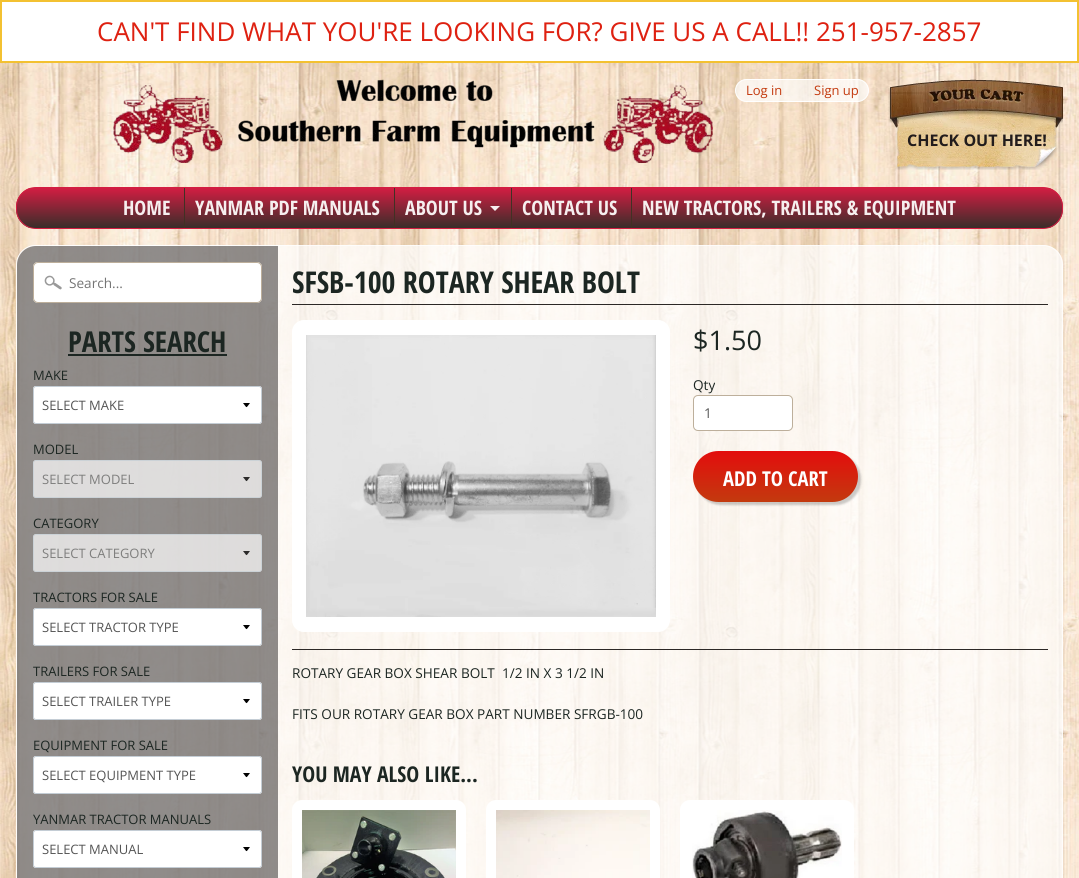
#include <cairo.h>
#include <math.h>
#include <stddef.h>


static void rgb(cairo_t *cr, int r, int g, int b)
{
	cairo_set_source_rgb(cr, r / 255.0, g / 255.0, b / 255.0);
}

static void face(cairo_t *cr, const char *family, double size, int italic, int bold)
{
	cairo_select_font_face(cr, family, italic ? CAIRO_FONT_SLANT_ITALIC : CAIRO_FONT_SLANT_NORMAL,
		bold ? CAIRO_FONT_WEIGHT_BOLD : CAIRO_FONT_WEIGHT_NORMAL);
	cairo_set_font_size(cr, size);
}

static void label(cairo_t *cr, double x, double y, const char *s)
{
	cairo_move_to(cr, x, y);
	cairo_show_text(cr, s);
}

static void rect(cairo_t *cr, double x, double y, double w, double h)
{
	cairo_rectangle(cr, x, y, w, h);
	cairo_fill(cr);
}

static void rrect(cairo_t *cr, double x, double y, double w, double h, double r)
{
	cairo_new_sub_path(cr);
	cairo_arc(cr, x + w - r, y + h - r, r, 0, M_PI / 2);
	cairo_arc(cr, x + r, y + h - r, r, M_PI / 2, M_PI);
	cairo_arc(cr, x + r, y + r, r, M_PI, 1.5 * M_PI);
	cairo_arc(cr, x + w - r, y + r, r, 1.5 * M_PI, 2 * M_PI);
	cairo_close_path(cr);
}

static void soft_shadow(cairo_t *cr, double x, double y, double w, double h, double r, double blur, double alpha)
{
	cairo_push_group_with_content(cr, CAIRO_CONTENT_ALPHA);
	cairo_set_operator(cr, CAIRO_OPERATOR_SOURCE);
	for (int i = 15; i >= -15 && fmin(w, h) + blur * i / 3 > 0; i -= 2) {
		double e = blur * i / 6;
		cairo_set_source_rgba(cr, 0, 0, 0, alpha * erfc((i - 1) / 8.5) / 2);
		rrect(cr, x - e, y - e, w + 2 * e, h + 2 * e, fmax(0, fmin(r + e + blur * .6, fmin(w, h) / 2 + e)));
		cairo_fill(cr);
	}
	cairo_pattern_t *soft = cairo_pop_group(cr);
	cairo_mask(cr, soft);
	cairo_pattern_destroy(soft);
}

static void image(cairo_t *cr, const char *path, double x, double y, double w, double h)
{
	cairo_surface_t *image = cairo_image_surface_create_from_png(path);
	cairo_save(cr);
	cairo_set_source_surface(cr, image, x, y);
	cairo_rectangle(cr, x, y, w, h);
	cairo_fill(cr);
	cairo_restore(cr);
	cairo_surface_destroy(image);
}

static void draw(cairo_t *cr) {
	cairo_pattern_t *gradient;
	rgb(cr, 255, 255, 255);
	cairo_paint(cr);
	image(cr, "image0.png", 0, 63, 1079, 815);
	cairo_rectangle(cr, 1, 1, 1077, 61);
	rgb(cr, 243, 193, 49);
	cairo_stroke(cr);
	face(cr, "Open Sans", 26, 0, 0);
	rgb(cr, 222, 33, 17);
	label(cr, 97, 41, "CAN'T FIND WHAT YOU'RE LOOKING FOR? GIVE US A CALL!! 251-957-2857");
	image(cr, "image1.png", 113, 79, 600, 84);
	cairo_set_source_rgba(cr, 1, 1, 1, 0.7);
	rrect(cr, 735.5, 79.5, 133, 22, 11);
	cairo_fill_preserve(cr);
	rgb(cr, 255, 255, 255);
	cairo_set_line_width(cr, 1);
	cairo_stroke(cr);
	face(cr, "Open Sans", 13, 0, 0);
	rgb(cr, 195, 58, 14);
	label(cr, 746, 95, "Log in");
	label(cr, 814, 95, "Sign up");
	image(cr, "image2.png", 888, 79, 175, 91);
	face(cr, "Open Sans", 16, 0, 1);
	rgb(cr, 34, 28, 28);
	label(cr, 907, 146, "CHECK OUT HERE!");
	cairo_save(cr);
	rrect(cr, 16, 187, 1047, 42, 20);
	cairo_clip(cr);
	gradient = cairo_pattern_create_linear(540, 188, 540, 228);
	cairo_pattern_add_color_stop_rgba(gradient, 0, 0.827, 0.114, 0.259, 1);
	cairo_pattern_add_color_stop_rgba(gradient, 1, 0.224, 0.18, 0.165, 1);
	cairo_set_source(cr, gradient);
	cairo_pattern_destroy(gradient);
	rect(cr, 16, 188, 1047, 40);
	cairo_restore(cr);
	rrect(cr, 16.5, 187.5, 1046, 41, 19.5);
	rgb(cr, 211, 29, 66);
	cairo_stroke(cr);
	face(cr, "Open Sans Condensed", 20, 0, 1);
	rgb(cr, 246, 239, 239);
	label(cr, 123, 215, "HOME");
	rgb(cr, 65, 49, 36);
	rect(cr, 184, 188, 1, 40);
	rgb(cr, 246, 239, 239);
	label(cr, 195, 215, "YANMAR PDF MANUALS");
	rgb(cr, 65, 49, 36);
	rect(cr, 394, 188, 1, 40);
	rgb(cr, 246, 239, 239);
	label(cr, 405, 215, "ABOUT US");
	cairo_new_path(cr);
	cairo_move_to(cr, 490, 206);
	cairo_line_to(cr, 500, 206);
	cairo_line_to(cr, 495, 211);
	cairo_close_path(cr);
	cairo_fill(cr);
	rgb(cr, 65, 49, 36);
	rect(cr, 511, 188, 1, 40);
	rgb(cr, 246, 239, 239);
	label(cr, 522, 215, "CONTACT US");
	rgb(cr, 65, 49, 36);
	rect(cr, 631, 188, 1, 40);
	rgb(cr, 246, 239, 239);
	label(cr, 642, 215, "NEW TRACTORS, TRAILERS & EQUIPMENT");
	cairo_set_source_rgba(cr, 1, 1, 1, 0.75);
	rrect(cr, 16, 245, 1047, 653, 20);
	cairo_fill(cr);
	rrect(cr, 16.5, 245.5, 1046, 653, 19.5);
	cairo_set_source_rgba(cr, 1, 1, 1, 0.7);
	cairo_stroke(cr);
	cairo_set_source_rgba(cr, 0.133, 0.118, 0.118, 0.5);
	cairo_new_path(cr);
	cairo_move_to(cr, 36, 246);
	cairo_line_to(cr, 278, 246);
	cairo_line_to(cr, 278, 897);
	cairo_line_to(cr, 36, 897);
	cairo_curve_to(cr, 25.5, 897, 17, 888.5, 17, 878);
	cairo_line_to(cr, 17, 265);
	cairo_curve_to(cr, 17, 254.5, 25.5, 246, 36, 246);
	cairo_close_path(cr);
	cairo_fill(cr);
	rgb(cr, 255, 255, 255);
	rrect(cr, 33, 262, 229, 41, 5);
	cairo_fill(cr);
	image(cr, "image3.png", 44, 275, 18, 15);
	rrect(cr, 33.5, 262.5, 228, 40, 4.5);
	rgb(cr, 189, 175, 155);
	cairo_stroke(cr);
	face(cr, "Open Sans", 13.6, 0, 0);
	rgb(cr, 117, 117, 117);
	label(cr, 69, 288, "Search...");
	face(cr, "Open Sans Condensed", 28.75, 0, 1);
	rgb(cr, 28, 38, 34);
	label(cr, 68, 352, "PARTS SEARCH");
	rect(cr, 68, 354, 159, 2);
	face(cr, "Open Sans", 13, 0, 0);
	label(cr, 33, 380, "MAKE");
	rgb(cr, 255, 255, 255);
	rrect(cr, 33, 386, 229, 38, 3);
	cairo_fill(cr);
	rgb(cr, 0, 0, 0);
	cairo_new_path(cr);
	cairo_move_to(cr, 243, 403);
	cairo_curve_to(cr, 247.5, 408.5, 245.5, 408.5, 250, 403);
	cairo_close_path(cr);
	cairo_fill(cr);
	rrect(cr, 33.5, 386.5, 228, 37, 2.5);
	rgb(cr, 196, 205, 213);
	cairo_stroke(cr);
	rgb(cr, 85, 85, 85);
	label(cr, 42, 410, "SELECT MAKE");
	rgb(cr, 28, 38, 34);
	label(cr, 33, 454, "MODEL");
	cairo_set_source_rgba(cr, 1, 1, 1, 0.7);
	rrect(cr, 33, 460, 229, 38, 3);
	cairo_fill(cr);
	rgb(cr, 43, 42, 41);
	cairo_new_path(cr);
	cairo_move_to(cr, 243, 477);
	cairo_curve_to(cr, 247.5, 482.5, 245.5, 482.5, 250, 477);
	cairo_close_path(cr);
	cairo_fill(cr);
	rrect(cr, 33.5, 460.5, 228, 37, 2.5);
	cairo_set_source_rgba(cr, 0.769, 0.804, 0.835, 0.7);
	cairo_stroke(cr);
	rgb(cr, 126, 126, 125);
	label(cr, 42, 484, "SELECT MODEL");
	rgb(cr, 28, 38, 34);
	label(cr, 33, 528, "CATEGORY");
	cairo_set_source_rgba(cr, 1, 1, 1, 0.7);
	rrect(cr, 33, 534, 229, 38, 3);
	cairo_fill(cr);
	rgb(cr, 43, 42, 41);
	cairo_new_path(cr);
	cairo_move_to(cr, 243, 551);
	cairo_curve_to(cr, 247.5, 556.5, 245.5, 556.5, 250, 551);
	cairo_close_path(cr);
	cairo_fill(cr);
	rrect(cr, 33.5, 534.5, 228, 37, 2.5);
	cairo_set_source_rgba(cr, 0.769, 0.804, 0.835, 0.7);
	cairo_stroke(cr);
	rgb(cr, 126, 126, 125);
	label(cr, 42, 558, "SELECT CATEGORY");
	rgb(cr, 28, 38, 34);
	label(cr, 33, 602, "TRACTORS FOR SALE");
	rgb(cr, 255, 255, 255);
	rrect(cr, 33, 608, 229, 38, 3);
	cairo_fill(cr);
	rgb(cr, 0, 0, 0);
	cairo_new_path(cr);
	cairo_move_to(cr, 243, 625);
	cairo_curve_to(cr, 247.5, 630.5, 245.5, 630.5, 250, 625);
	cairo_close_path(cr);
	cairo_fill(cr);
	rrect(cr, 33.5, 608.5, 228, 37, 2.5);
	rgb(cr, 196, 205, 213);
	cairo_stroke(cr);
	rgb(cr, 85, 85, 85);
	label(cr, 42, 632, "SELECT TRACTOR TYPE");
	rgb(cr, 28, 38, 34);
	label(cr, 33, 676, "TRAILERS FOR SALE");
	rgb(cr, 255, 255, 255);
	rrect(cr, 33, 682, 229, 38, 3);
	cairo_fill(cr);
	rgb(cr, 0, 0, 0);
	cairo_new_path(cr);
	cairo_move_to(cr, 243, 699);
	cairo_curve_to(cr, 247.5, 704.5, 245.5, 704.5, 250, 699);
	cairo_close_path(cr);
	cairo_fill(cr);
	rrect(cr, 33.5, 682.5, 228, 37, 2.5);
	rgb(cr, 196, 205, 213);
	cairo_stroke(cr);
	rgb(cr, 85, 85, 85);
	label(cr, 42, 706, "SELECT TRAILER TYPE");
	rgb(cr, 28, 38, 34);
	label(cr, 33, 750, "EQUIPMENT FOR SALE");
	rgb(cr, 255, 255, 255);
	rrect(cr, 33, 756, 229, 38, 3);
	cairo_fill(cr);
	rgb(cr, 0, 0, 0);
	cairo_new_path(cr);
	cairo_move_to(cr, 243, 773);
	cairo_curve_to(cr, 247.5, 778.5, 245.5, 778.5, 250, 773);
	cairo_close_path(cr);
	cairo_fill(cr);
	rrect(cr, 33.5, 756.5, 228, 37, 2.5);
	rgb(cr, 196, 205, 213);
	cairo_stroke(cr);
	rgb(cr, 85, 85, 85);
	label(cr, 42, 780, "SELECT EQUIPMENT TYPE");
	rgb(cr, 28, 38, 34);
	label(cr, 33, 824, "YANMAR TRACTOR MANUALS");
	rgb(cr, 255, 255, 255);
	rrect(cr, 33, 830, 229, 38, 3);
	cairo_fill(cr);
	rgb(cr, 0, 0, 0);
	cairo_new_path(cr);
	cairo_move_to(cr, 243, 847);
	cairo_curve_to(cr, 247.5, 852.5, 245.5, 852.5, 250, 847);
	cairo_close_path(cr);
	cairo_fill(cr);
	rrect(cr, 33.5, 830.5, 228, 37, 2.5);
	rgb(cr, 196, 205, 213);
	cairo_stroke(cr);
	rgb(cr, 85, 85, 85);
	label(cr, 42, 854, "SELECT MANUAL");
	rgb(cr, 44, 40, 38);
	rect(cr, 292, 304, 756, 1);
	face(cr, "Open Sans Condensed", 30, 0, 1);
	rgb(cr, 28, 38, 34);
	label(cr, 292, 293, "SFSB-100 ROTARY SHEAR BOLT");
	rgb(cr, 255, 255, 255);
	rrect(cr, 292.5, 320.5, 377, 311, 11.5);
	cairo_fill_preserve(cr);
	cairo_stroke(cr);
	image(cr, "image4.png", 306, 335, 350, 282);
	face(cr, "Open Sans", 27, 0, 0);
	rgb(cr, 28, 38, 34);
	label(cr, 693, 350, "$1.50");
	face(cr, "Open Sans", 13.6, 0, 0);
	label(cr, 693, 390, "Qty");
	rgb(cr, 255, 255, 255);
	rrect(cr, 693.5, 395.5, 99, 35, 4.5);
	cairo_fill_preserve(cr);
	rgb(cr, 189, 175, 155);
	cairo_stroke(cr);
	rgb(cr, 85, 85, 85);
	label(cr, 704, 418, "1");
	rgb(cr, 0, 0, 0);
	soft_shadow(cr, 696, 454, 165, 51, 25.5, 1, 0.2);
	gradient = cairo_pattern_create_linear(776, 451, 776, 502);
	cairo_pattern_add_color_stop_rgba(gradient, 0, 0.89, 0.051, 0.051, 1);
	cairo_pattern_add_color_stop_rgba(gradient, 1, 0.765, 0.227, 0.055, 1);
	cairo_set_source(cr, gradient);
	cairo_pattern_destroy(gradient);
	rrect(cr, 693, 451, 165, 51, 25.5);
	cairo_fill(cr);
	face(cr, "Open Sans Condensed", 20.5, 0, 1);
	rgb(cr, 255, 255, 255);
	label(cr, 723, 486, "ADD TO CART");
	rgb(cr, 44, 40, 38);
	rect(cr, 292, 649, 756, 1);
	face(cr, "Open Sans", 13.6, 0, 0);
	rgb(cr, 28, 38, 34);
	label(cr, 292, 678, "ROTARY GEAR BOX SHEAR BOLT  1/2 IN X 3 1/2 IN");
	label(cr, 292, 719, "FITS OUR ROTARY GEAR BOX PART NUMBER SFRGB-100");
	face(cr, "Open Sans Condensed", 21.75, 0, 1);
	label(cr, 292, 782, "YOU MAY ALSO LIKE...");
	rgb(cr, 255, 255, 255);
	rrect(cr, 292, 800, 174, 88, 10);
	cairo_fill(cr);
	image(cr, "image5.png", 302, 810, 154, 68);
	rrect(cr, 486, 800, 174, 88, 10);
	cairo_fill(cr);
	image(cr, "image6.png", 496, 810, 154, 68);
	rrect(cr, 680, 800, 174, 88, 10);
	cairo_fill(cr);
	image(cr, "image7.png", 692, 810, 150, 68);
}

int main(void) {
	cairo_surface_t *surface = cairo_image_surface_create(CAIRO_FORMAT_RGB24, 1079, 878);
	cairo_t *cr = cairo_create(surface);
	cairo_font_options_t *options = cairo_font_options_create();
	cairo_font_options_set_hint_metrics(options, CAIRO_HINT_METRICS_OFF);
	cairo_font_options_set_hint_style(options, CAIRO_HINT_STYLE_NONE);
	cairo_set_font_options(cr, options);
	cairo_set_miter_limit(cr, 4);
	draw(cr);
	cairo_surface_write_to_png(surface, "render.png");
	cairo_font_options_destroy(options);
	cairo_destroy(cr);
	cairo_surface_destroy(surface);
	return 0;
}
